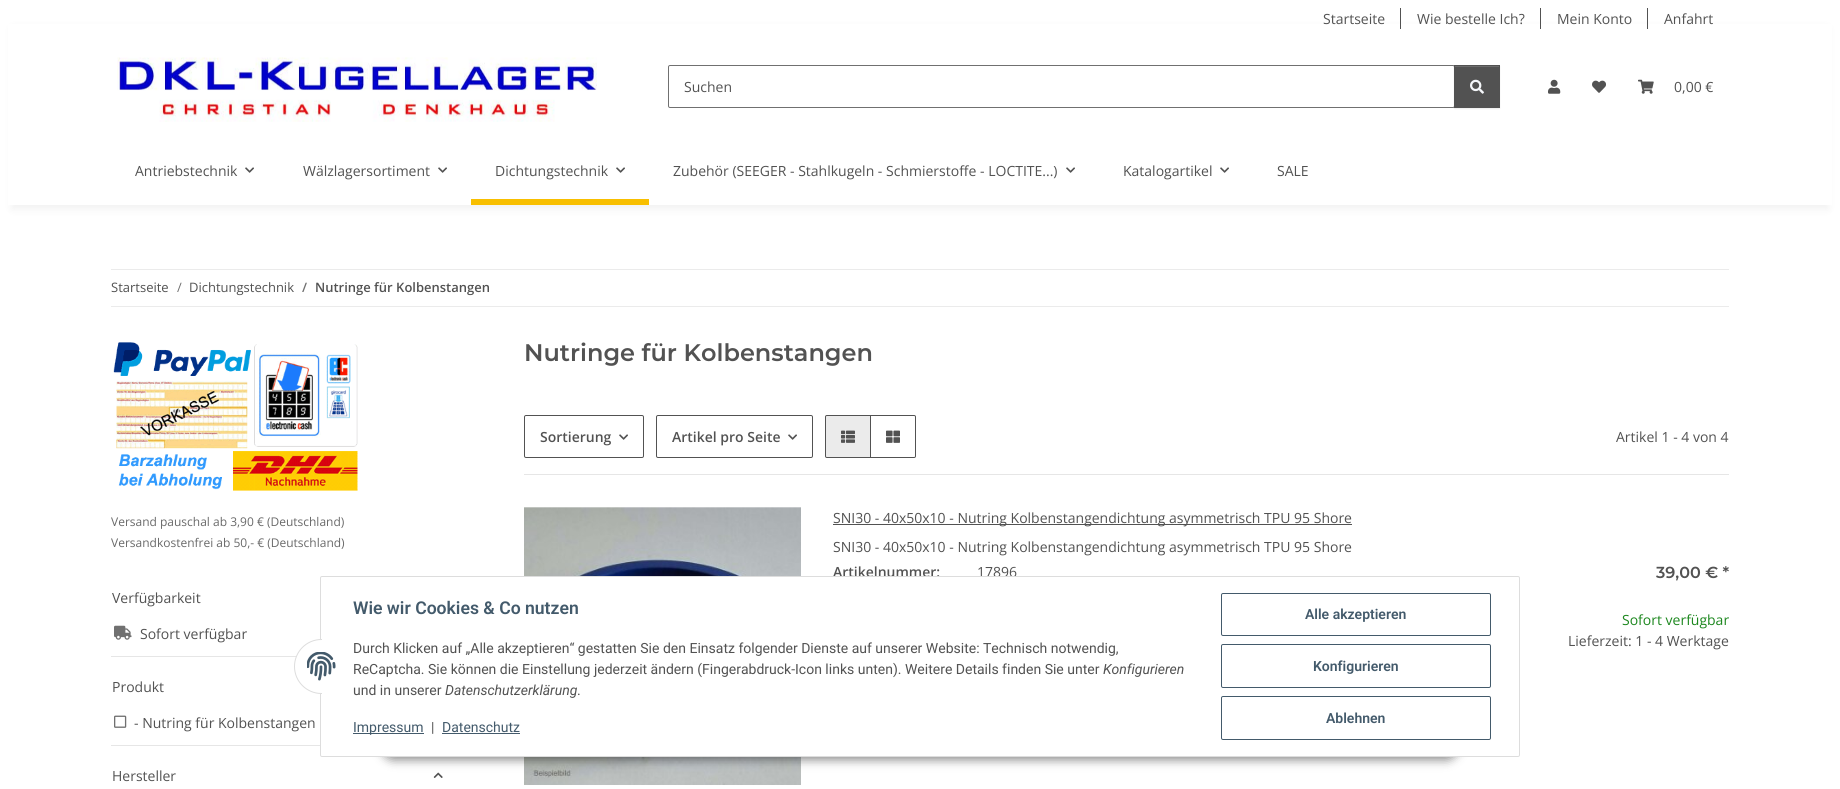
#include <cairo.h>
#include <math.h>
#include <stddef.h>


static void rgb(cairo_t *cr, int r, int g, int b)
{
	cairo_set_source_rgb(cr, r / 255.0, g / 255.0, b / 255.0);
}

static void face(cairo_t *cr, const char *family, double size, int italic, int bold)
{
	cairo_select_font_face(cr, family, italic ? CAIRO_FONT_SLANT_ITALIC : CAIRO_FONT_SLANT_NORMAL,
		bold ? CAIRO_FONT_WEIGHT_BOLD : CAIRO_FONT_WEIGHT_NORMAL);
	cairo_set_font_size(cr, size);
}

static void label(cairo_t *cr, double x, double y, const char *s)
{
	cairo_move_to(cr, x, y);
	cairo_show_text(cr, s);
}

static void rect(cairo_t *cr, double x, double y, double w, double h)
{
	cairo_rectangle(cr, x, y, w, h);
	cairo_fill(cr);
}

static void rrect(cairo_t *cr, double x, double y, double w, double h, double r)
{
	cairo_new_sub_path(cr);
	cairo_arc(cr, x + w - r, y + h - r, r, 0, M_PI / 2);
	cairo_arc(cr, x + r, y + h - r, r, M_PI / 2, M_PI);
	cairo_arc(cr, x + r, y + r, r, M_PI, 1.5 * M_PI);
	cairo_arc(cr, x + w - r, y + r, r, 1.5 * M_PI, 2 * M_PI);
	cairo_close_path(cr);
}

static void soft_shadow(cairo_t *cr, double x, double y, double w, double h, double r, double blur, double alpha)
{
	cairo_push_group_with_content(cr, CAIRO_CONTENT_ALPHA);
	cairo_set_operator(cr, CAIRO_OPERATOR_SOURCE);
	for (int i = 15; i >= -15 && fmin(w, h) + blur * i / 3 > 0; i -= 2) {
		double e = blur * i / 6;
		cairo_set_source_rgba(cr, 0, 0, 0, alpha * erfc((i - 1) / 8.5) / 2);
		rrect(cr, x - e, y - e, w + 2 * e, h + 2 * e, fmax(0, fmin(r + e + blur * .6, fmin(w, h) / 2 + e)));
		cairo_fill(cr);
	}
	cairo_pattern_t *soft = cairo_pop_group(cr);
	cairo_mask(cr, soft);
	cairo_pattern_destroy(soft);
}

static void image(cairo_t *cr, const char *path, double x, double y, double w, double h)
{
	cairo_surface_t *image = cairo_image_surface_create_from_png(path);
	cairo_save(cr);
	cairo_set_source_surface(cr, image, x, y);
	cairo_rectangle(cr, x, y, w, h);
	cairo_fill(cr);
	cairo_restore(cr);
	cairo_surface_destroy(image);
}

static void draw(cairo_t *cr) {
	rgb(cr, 255, 255, 255);
	cairo_paint(cr);
	rgb(cr, 0, 0, 0);
	soft_shadow(cr, 12, 28, 1816, 181, 0, 4.5, 0.06);
	rgb(cr, 255, 255, 255);
	rect(cr, 8, 24, 1824, 181);
	face(cr, "Open Sans", 14, 0, 0);
	rgb(cr, 82, 82, 82);
	label(cr, 1323, 24, "Startseite");
	rect(cr, 1400, 8, 1, 21);
	label(cr, 1417, 24, "Wie bestelle Ich?");
	rect(cr, 1540, 8, 1, 21);
	label(cr, 1557, 24, "Mein Konto");
	rect(cr, 1647, 8, 1, 21);
	label(cr, 1664, 24, "Anfahrt");
	image(cr, "image0.png", 117, 57, 480, 65);
	rrect(cr, 668.5, 65.5, 786, 42, 1.5);
	rgb(cr, 112, 112, 112);
	cairo_set_line_width(cr, 1);
	cairo_stroke(cr);
	rgb(cr, 82, 82, 82);
	label(cr, 684, 92, "Suchen");
	rgb(cr, 0, 0, 0);
	soft_shadow(cr, 1454, 66, 46, 43, 0, 0.5, 0.07);
	rgb(cr, 82, 82, 82);
	rect(cr, 1454, 65, 46, 43);
	rgb(cr, 108, 108, 108);
	rect(cr, 1455, 66, 44, 1);
	image(cr, "image1.png", 1470, 79, 14, 15);
	image(cr, "image2.png", 1548, 79, 13, 15);
	image(cr, "image3.png", 1592, 80, 14, 13);
	image(cr, "image4.png", 1638, 79, 16, 15);
	rgb(cr, 82, 82, 82);
	label(cr, 1674, 92, "0,00 €");
	label(cr, 135, 176, "Antriebstechnik");
	image(cr, "image5.png", 245, 167, 9, 6);
	label(cr, 303, 176, "Wälzlagersortiment");
	image(cr, "image5.png", 438, 167, 9, 6);
	label(cr, 495, 176, "Dichtungstechnik");
	image(cr, "image5.png", 616, 167, 9, 6);
	rgb(cr, 248, 191, 0);
	rect(cr, 471, 199, 178, 6);
	rgb(cr, 82, 82, 82);
	label(cr, 673, 176, "Zubehör (SEEGER - Stahlkugeln - Schmierstoffe - LOCTITE...)");
	image(cr, "image5.png", 1066, 167, 9, 6);
	label(cr, 1123, 176, "Katalogartikel");
	image(cr, "image5.png", 1220, 167, 9, 6);
	label(cr, 1277, 176, "SALE");
	rgb(cr, 235, 235, 235);
	rect(cr, 111, 269, 1618, 1);
	rect(cr, 111, 306, 1618, 1);
	face(cr, "Open Sans", 13, 0, 0);
	rgb(cr, 82, 82, 82);
	label(cr, 111, 292, "Startseite");
	rgb(cr, 112, 112, 112);
	label(cr, 177, 292, "/");
	rgb(cr, 82, 82, 82);
	label(cr, 189, 292, "Dichtungstechnik");
	face(cr, "Open Sans SemiBold", 13, 0, 0);
	rgb(cr, 112, 112, 112);
	label(cr, 302, 292, "/");
	rgb(cr, 82, 82, 82);
	label(cr, 315, 292, "Nutringe für Kolbenstangen");
	image(cr, "image6.png", 113, 342, 245, 149);
	face(cr, "Open Sans", 12, 0, 0);
	rgb(cr, 105, 105, 105);
	label(cr, 111, 526, "Versand pauschal ab 3,90 € (Deutschland)");
	label(cr, 111, 547, "Versandkostenfrei ab 50,- € (Deutschland)");
	face(cr, "Open Sans", 14, 0, 0);
	rgb(cr, 82, 82, 82);
	label(cr, 112, 603, "Verfügbarkeit");
	image(cr, "image7.png", 114, 625, 18, 15);
	label(cr, 140, 639, "Sofort verfügbar");
	rgb(cr, 230, 230, 230);
	rect(cr, 111, 656, 186, 1);
	rgb(cr, 82, 82, 82);
	label(cr, 112, 692, "Produkt");
	image(cr, "image8.png", 114, 715, 13, 13);
	label(cr, 134, 728, "- Nutring für Kolbenstangen");
	rgb(cr, 230, 230, 230);
	rect(cr, 111, 745, 209, 1);
	rgb(cr, 82, 82, 82);
	label(cr, 112, 781, "Hersteller");
	image(cr, "image9.png", 433, 772, 10, 6);
	face(cr, "Montserrat SemiBold", 24, 0, 0);
	label(cr, 524, 361, "Nutringe für Kolbenstangen");
	rrect(cr, 524.5, 415.5, 119, 42, 1.5);
	cairo_stroke(cr);
	face(cr, "Open Sans SemiBold", 14, 0, 0);
	label(cr, 540, 442, "Sortierung");
	image(cr, "image5.png", 619, 434, 9, 6);
	rrect(cr, 656.5, 415.5, 156, 42, 1.5);
	cairo_stroke(cr);
	label(cr, 672, 442, "Artikel pro Seite");
	image(cr, "image5.png", 788, 434, 9, 6);
	cairo_new_path(cr);
	cairo_move_to(cr, 870.5, 415.5);
	cairo_line_to(cr, 914, 415.5);
	cairo_curve_to(cr, 915, 415.5, 915.5, 416, 915.5, 417);
	cairo_line_to(cr, 915.5, 456);
	cairo_curve_to(cr, 915.5, 457, 915, 457.5, 914, 457.5);
	cairo_line_to(cr, 870.5, 457.5);
	cairo_close_path(cr);
	cairo_stroke(cr);
	rgb(cr, 235, 235, 235);
	cairo_new_path(cr);
	cairo_move_to(cr, 827, 415.5);
	cairo_line_to(cr, 870.5, 415.5);
	cairo_line_to(cr, 870.5, 457.5);
	cairo_line_to(cr, 827, 457.5);
	cairo_curve_to(cr, 826, 457.5, 825.5, 457, 825.5, 456);
	cairo_line_to(cr, 825.5, 417);
	cairo_curve_to(cr, 825.5, 416, 826, 415.5, 827, 415.5);
	cairo_close_path(cr);
	cairo_fill_preserve(cr);
	rgb(cr, 82, 82, 82);
	cairo_stroke(cr);
	image(cr, "image10.png", 841, 430, 14, 13);
	image(cr, "image11.png", 886, 430, 14, 13);
	face(cr, "Open Sans", 14, 0, 0);
	label(cr, 1616, 442, "Artikel 1 - 4 von 4");
	rgb(cr, 230, 230, 230);
	rect(cr, 524, 474, 1205, 1);
	image(cr, "image12.png", 524, 507, 277, 278);
	rgb(cr, 82, 82, 82);
	rect(cr, 833, 524, 519, 1);
	label(cr, 833, 523, "SNI30 - 40x50x10 - Nutring Kolbenstangendichtung asymmetrisch TPU 95 Shore");
	label(cr, 833, 552, "SNI30 - 40x50x10 - Nutring Kolbenstangendichtung asymmetrisch TPU 95 Shore");
	face(cr, "Open Sans SemiBold", 14, 0, 0);
	label(cr, 833, 577, "Artikelnummer:");
	face(cr, "Open Sans", 14, 0, 0);
	label(cr, 977, 577, "17896");
	face(cr, "Montserrat SemiBold", 16, 0, 0);
	label(cr, 1656, 578, "39,00 € *");
	face(cr, "Open Sans", 14, 0, 0);
	rgb(cr, 28, 135, 30);
	label(cr, 1622, 625, "Sofort verfügbar");
	rgb(cr, 82, 82, 82);
	label(cr, 1568, 646, "Lieferzeit: 1 - 4 Werktage");
	rgb(cr, 0, 0, 0);
	soft_shadow(cr, 381, 728, 1078, 32, 16, 5, 0.45);
	rgb(cr, 255, 255, 255);
	rrect(cr, 320.5, 576.5, 1199, 180, 1.5);
	cairo_fill_preserve(cr);
	rgb(cr, 221, 221, 221);
	cairo_stroke(cr);
	rgb(cr, 255, 255, 255);
	cairo_arc(cr, 321.5, 666.5, 27, 0, 2 * M_PI);
	cairo_fill_preserve(cr);
	rgb(cr, 221, 221, 221);
	cairo_stroke(cr);
	rgb(cr, 255, 255, 255);
	rect(cr, 322, 639, 27, 55);
	image(cr, "image13.png", 307, 652, 29, 29);
	face(cr, "Roboto SemiBold", 17.6, 0, 0);
	rgb(cr, 67, 90, 107);
	label(cr, 353, 614, "Wie wir Cookies & Co nutzen");
	face(cr, "Roboto", 14, 0, 0);
	rgb(cr, 82, 82, 82);
	label(cr, 353, 653, "Durch Klicken auf „Alle akzeptieren“ gestatten Sie den Einsatz folgender Dienste auf unserer Website: Technisch notwendig,");
	label(cr, 353, 674, "ReCaptcha. Sie können die Einstellung jederzeit ändern (Fingerabdruck-Icon links unten). Weitere Details finden Sie unter");
	face(cr, "Roboto", 14, 1, 0);
	label(cr, 1103, 674, "Konfigurieren");
	face(cr, "Roboto", 14, 0, 0);
	label(cr, 353, 695, "und in unserer");
	face(cr, "Roboto", 14, 1, 0);
	label(cr, 445, 695, "Datenschutzerklärung");
	face(cr, "Roboto", 14, 0, 0);
	label(cr, 577, 695, ".");
	rgb(cr, 67, 90, 107);
	rect(cr, 353, 733, 71, 1);
	label(cr, 353, 732, "Impressum");
	rgb(cr, 82, 82, 82);
	label(cr, 431, 732, "|");
	rgb(cr, 67, 90, 107);
	label(cr, 442, 732, "Datenschutz");
	rect(cr, 442, 733, 78, 1);
	rrect(cr, 1221.5, 593.5, 269, 42, 1.5);
	cairo_stroke(cr);
	face(cr, "Roboto SemiBold", 14, 0, 0);
	label(cr, 1305, 619, "Alle akzeptieren");
	rrect(cr, 1221.5, 644.5, 269, 43, 1.5);
	cairo_stroke(cr);
	label(cr, 1313, 671, "Konfigurieren");
	rrect(cr, 1221.5, 696.5, 269, 43, 1.5);
	cairo_stroke(cr);
	label(cr, 1326, 723, "Ablehnen");
}

int main(void) {
	cairo_surface_t *surface = cairo_image_surface_create(CAIRO_FORMAT_RGB24, 1840, 789);
	cairo_t *cr = cairo_create(surface);
	cairo_font_options_t *options = cairo_font_options_create();
	cairo_font_options_set_hint_metrics(options, CAIRO_HINT_METRICS_OFF);
	cairo_font_options_set_hint_style(options, CAIRO_HINT_STYLE_NONE);
	cairo_set_font_options(cr, options);
	cairo_set_miter_limit(cr, 4);
	draw(cr);
	cairo_surface_write_to_png(surface, "render.png");
	cairo_font_options_destroy(options);
	cairo_destroy(cr);
	cairo_surface_destroy(surface);
	return 0;
}
